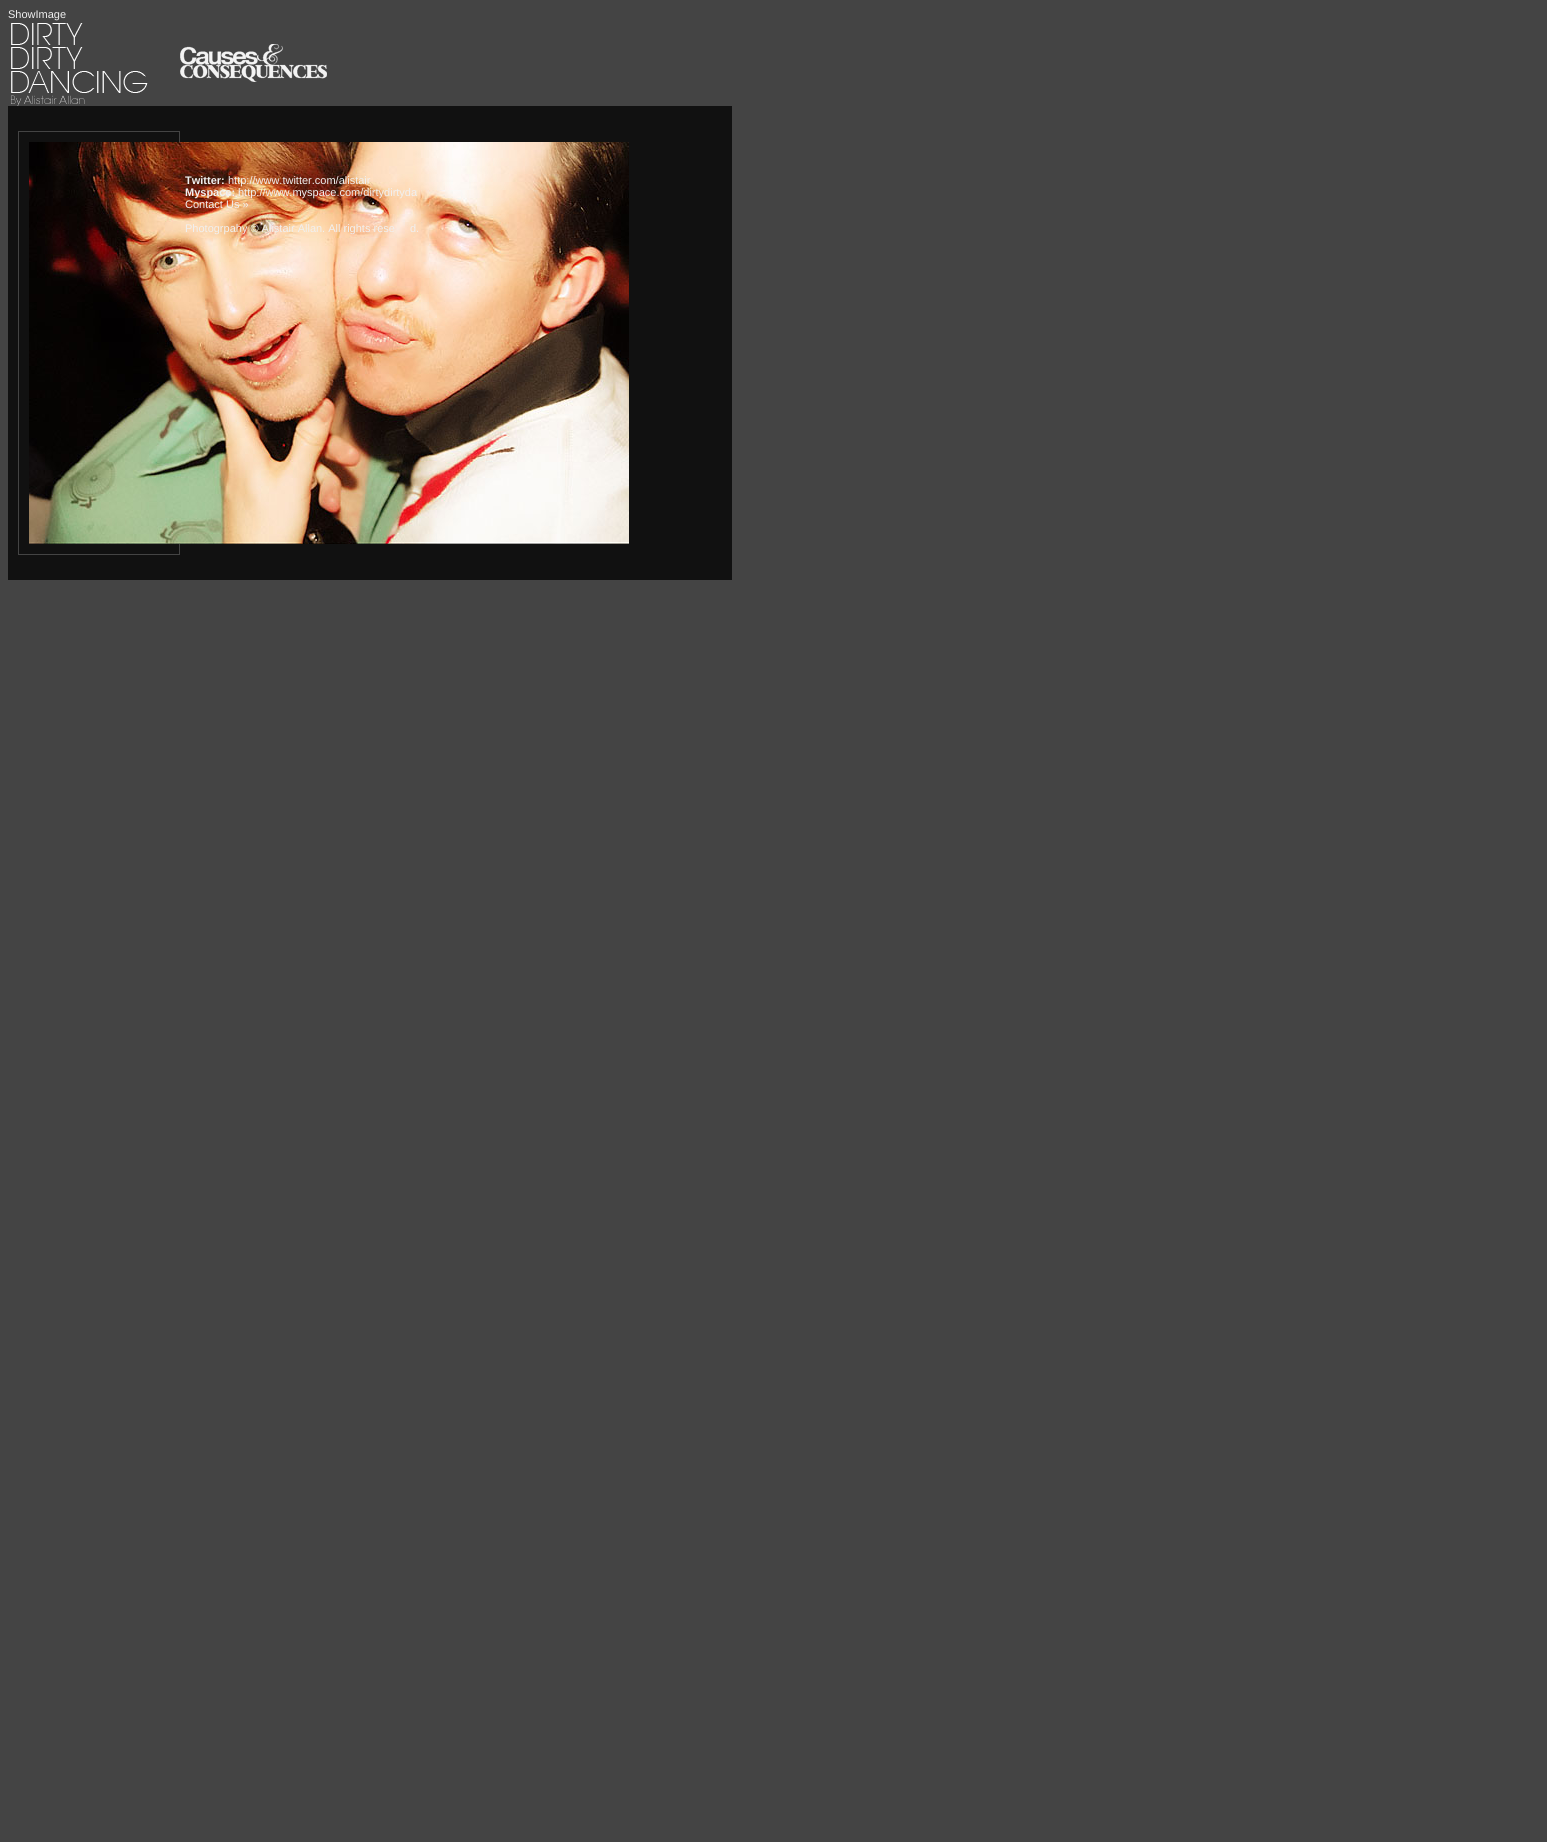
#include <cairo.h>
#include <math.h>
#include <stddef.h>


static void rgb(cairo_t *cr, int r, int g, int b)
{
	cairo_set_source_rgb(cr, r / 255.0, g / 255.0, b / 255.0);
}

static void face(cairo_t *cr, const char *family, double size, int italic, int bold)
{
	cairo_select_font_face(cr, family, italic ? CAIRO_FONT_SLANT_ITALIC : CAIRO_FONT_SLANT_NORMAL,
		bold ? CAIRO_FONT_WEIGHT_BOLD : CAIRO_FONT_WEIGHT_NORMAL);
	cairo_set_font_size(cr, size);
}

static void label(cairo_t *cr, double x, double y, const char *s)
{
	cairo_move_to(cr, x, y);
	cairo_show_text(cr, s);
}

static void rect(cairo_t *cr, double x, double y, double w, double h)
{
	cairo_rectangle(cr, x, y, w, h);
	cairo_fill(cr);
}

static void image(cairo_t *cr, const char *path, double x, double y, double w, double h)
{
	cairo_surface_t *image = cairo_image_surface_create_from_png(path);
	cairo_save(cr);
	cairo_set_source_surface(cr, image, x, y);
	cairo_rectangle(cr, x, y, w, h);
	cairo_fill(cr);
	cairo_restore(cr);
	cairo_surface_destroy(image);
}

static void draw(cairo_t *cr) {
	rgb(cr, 68, 68, 68);
	cairo_paint(cr);
	face(cr, "Liberation Sans", 11, 0, 0);
	rgb(cr, 240, 240, 240);
	label(cr, 8, 18, "ShowImage");
	image(cr, "image0.png", 11, 23, 137, 83);
	image(cr, "image1.png", 180, 44, 147, 38);
	rgb(cr, 17, 17, 17);
	rect(cr, 8, 106, 724, 474);
	cairo_rectangle(cr, 18.5, 131.5, 161, 423);
	rgb(cr, 68, 68, 68);
	cairo_set_line_width(cr, 1);
	cairo_stroke(cr);
	image(cr, "image2.png", 29, 142, 600, 402);
	face(cr, "Liberation Sans", 11, 0, 1);
	rgb(cr, 240, 240, 240);
	label(cr, 185, 184, "Twitter:");
	face(cr, "Liberation Sans", 11, 0, 0);
	label(cr, 228, 184, "http://www.twitter.com/alistair");
	face(cr, "Liberation Sans", 11, 0, 1);
	label(cr, 185, 196, "Myspace:");
	face(cr, "Liberation Sans", 11, 0, 0);
	label(cr, 238, 196, "http://www.myspace.com/dirtydirtyda");
	label(cr, 185, 208, "Contact Us »");
	label(cr, 185, 232, "Photogrpahy © Alistair Allan. All rights rese");
	label(cr, 410, 232, "d.");
}

int main(void) {
	cairo_surface_t *surface = cairo_image_surface_create(CAIRO_FORMAT_RGB24, 1547, 1842);
	cairo_t *cr = cairo_create(surface);
	cairo_font_options_t *options = cairo_font_options_create();
	cairo_font_options_set_hint_metrics(options, CAIRO_HINT_METRICS_OFF);
	cairo_font_options_set_hint_style(options, CAIRO_HINT_STYLE_NONE);
	cairo_set_font_options(cr, options);
	cairo_set_miter_limit(cr, 4);
	draw(cr);
	cairo_surface_write_to_png(surface, "render.png");
	cairo_font_options_destroy(options);
	cairo_destroy(cr);
	cairo_surface_destroy(surface);
	return 0;
}
